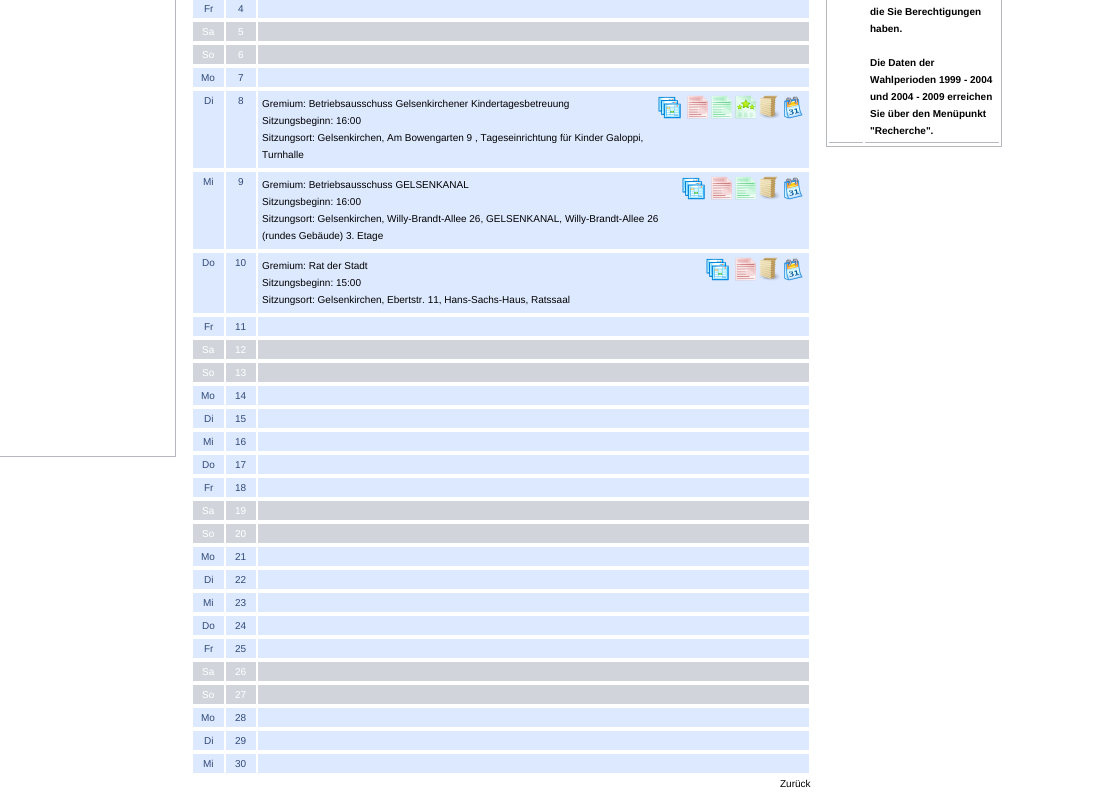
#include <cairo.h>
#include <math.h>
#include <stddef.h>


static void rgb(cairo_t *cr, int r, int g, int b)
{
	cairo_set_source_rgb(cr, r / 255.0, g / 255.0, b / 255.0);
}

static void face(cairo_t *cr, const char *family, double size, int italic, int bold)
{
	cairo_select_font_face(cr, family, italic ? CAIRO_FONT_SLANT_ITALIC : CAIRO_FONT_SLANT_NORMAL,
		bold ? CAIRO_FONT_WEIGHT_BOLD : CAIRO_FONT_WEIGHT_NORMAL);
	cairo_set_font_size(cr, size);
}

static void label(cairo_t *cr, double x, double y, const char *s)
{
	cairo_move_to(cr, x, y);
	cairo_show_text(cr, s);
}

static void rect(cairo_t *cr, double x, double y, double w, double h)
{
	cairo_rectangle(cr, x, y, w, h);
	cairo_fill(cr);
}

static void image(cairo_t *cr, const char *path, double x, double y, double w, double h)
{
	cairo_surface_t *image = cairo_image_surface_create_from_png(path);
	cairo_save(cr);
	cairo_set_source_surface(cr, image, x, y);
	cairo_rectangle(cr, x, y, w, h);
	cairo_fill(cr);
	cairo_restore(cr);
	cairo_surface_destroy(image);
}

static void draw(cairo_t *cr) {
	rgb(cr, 255, 255, 255);
	cairo_paint(cr);
	rgb(cr, 181, 184, 193);
	rect(cr, 175, 0, 1, 457);
	rect(cr, 0, 456, 176, 1);
	rgb(cr, 221, 233, 255);
	rect(cr, 193, 0, 31, 18);
	face(cr, "Liberation Sans", 10, 0, 0);
	rgb(cr, 49, 73, 119);
	label(cr, 204, 12, "Fr");
	rgb(cr, 221, 233, 255);
	rect(cr, 226, 0, 30, 18);
	rgb(cr, 49, 73, 119);
	label(cr, 238, 12, "4");
	rgb(cr, 221, 233, 255);
	rect(cr, 258, 0, 551, 18);
	rgb(cr, 209, 213, 219);
	rect(cr, 193, 22, 31, 19);
	rgb(cr, 255, 255, 255);
	label(cr, 202, 35, "Sa");
	rgb(cr, 209, 213, 219);
	rect(cr, 226, 22, 30, 19);
	rgb(cr, 255, 255, 255);
	label(cr, 238, 35, "5");
	rgb(cr, 209, 213, 219);
	rect(cr, 258, 22, 551, 19);
	rect(cr, 193, 45, 31, 19);
	rgb(cr, 255, 255, 255);
	label(cr, 202, 58, "So");
	rgb(cr, 209, 213, 219);
	rect(cr, 226, 45, 30, 19);
	rgb(cr, 255, 255, 255);
	label(cr, 238, 58, "6");
	rgb(cr, 209, 213, 219);
	rect(cr, 258, 45, 551, 19);
	rgb(cr, 221, 233, 255);
	rect(cr, 193, 68, 31, 19);
	rgb(cr, 49, 73, 119);
	label(cr, 201, 81, "Mo");
	rgb(cr, 221, 233, 255);
	rect(cr, 226, 68, 30, 19);
	rgb(cr, 49, 73, 119);
	label(cr, 238, 81, "7");
	rgb(cr, 221, 233, 255);
	rect(cr, 258, 68, 551, 19);
	rect(cr, 193, 91, 31, 77);
	rgb(cr, 49, 73, 119);
	label(cr, 204, 104, "Di");
	rgb(cr, 221, 233, 255);
	rect(cr, 226, 91, 30, 77);
	rgb(cr, 49, 73, 119);
	label(cr, 238, 104, "8");
	rgb(cr, 221, 233, 255);
	rect(cr, 258, 91, 551, 77);
	rgb(cr, 0, 0, 0);
	label(cr, 262, 107, "Gremium: Betriebsausschuss Gelsenkirchener Kindertagesbetreuung");
	label(cr, 262, 124, "Sitzungsbeginn: 16:00");
	label(cr, 262, 141, "Sitzungsort: Gelsenkirchen, Am Bowengarten 9 , Tageseinrichtung für Kinder Galoppi,");
	label(cr, 262, 158, "Turnhalle");
	image(cr, "image0.png", 658, 96, 23, 23);
	image(cr, "image1.png", 687, 95, 21, 24);
	image(cr, "image2.png", 711, 95, 21, 24);
	image(cr, "image3.png", 735, 95, 21, 24);
	image(cr, "image4.png", 759, 95, 21, 24);
	image(cr, "image5.png", 784, 96, 19, 23);
	rgb(cr, 221, 233, 255);
	rect(cr, 193, 172, 31, 77);
	rgb(cr, 49, 73, 119);
	label(cr, 203, 185, "Mi");
	rgb(cr, 221, 233, 255);
	rect(cr, 226, 172, 30, 77);
	rgb(cr, 49, 73, 119);
	label(cr, 238, 185, "9");
	rgb(cr, 221, 233, 255);
	rect(cr, 258, 172, 551, 77);
	rgb(cr, 0, 0, 0);
	label(cr, 262, 188, "Gremium: Betriebsausschuss GELSENKANAL");
	label(cr, 262, 205, "Sitzungsbeginn: 16:00");
	label(cr, 262, 222, "Sitzungsort: Gelsenkirchen, Willy-Brandt-Allee 26, GELSENKANAL, Willy-Brandt-Allee 26");
	label(cr, 262, 239, "(rundes Gebäude) 3. Etage");
	image(cr, "image0.png", 682, 177, 23, 23);
	image(cr, "image6.png", 711, 176, 21, 24);
	image(cr, "image7.png", 735, 176, 21, 24);
	image(cr, "image8.png", 759, 176, 21, 24);
	image(cr, "image5.png", 784, 177, 19, 23);
	rgb(cr, 221, 233, 255);
	rect(cr, 193, 253, 31, 60);
	rgb(cr, 49, 73, 119);
	label(cr, 202, 266, "Do");
	rgb(cr, 221, 233, 255);
	rect(cr, 226, 253, 30, 60);
	rgb(cr, 49, 73, 119);
	label(cr, 235, 266, "10");
	rgb(cr, 221, 233, 255);
	rect(cr, 258, 253, 551, 60);
	rgb(cr, 0, 0, 0);
	label(cr, 262, 269, "Gremium: Rat der Stadt");
	label(cr, 262, 286, "Sitzungsbeginn: 15:00");
	label(cr, 262, 303, "Sitzungsort: Gelsenkirchen, Ebertstr. 11, Hans-Sachs-Haus, Ratssaal");
	image(cr, "image0.png", 706, 258, 23, 23);
	image(cr, "image6.png", 735, 257, 21, 24);
	image(cr, "image8.png", 759, 257, 21, 24);
	image(cr, "image5.png", 784, 258, 19, 23);
	rgb(cr, 221, 233, 255);
	rect(cr, 193, 317, 31, 19);
	rgb(cr, 49, 73, 119);
	label(cr, 204, 330, "Fr");
	rgb(cr, 221, 233, 255);
	rect(cr, 226, 317, 30, 19);
	rgb(cr, 49, 73, 119);
	label(cr, 235, 330, "11");
	rgb(cr, 221, 233, 255);
	rect(cr, 258, 317, 551, 19);
	rgb(cr, 209, 213, 219);
	rect(cr, 193, 340, 31, 19);
	rgb(cr, 255, 255, 255);
	label(cr, 202, 353, "Sa");
	rgb(cr, 209, 213, 219);
	rect(cr, 226, 340, 30, 19);
	rgb(cr, 255, 255, 255);
	label(cr, 235, 353, "12");
	rgb(cr, 209, 213, 219);
	rect(cr, 258, 340, 551, 19);
	rect(cr, 193, 363, 31, 19);
	rgb(cr, 255, 255, 255);
	label(cr, 202, 376, "So");
	rgb(cr, 209, 213, 219);
	rect(cr, 226, 363, 30, 19);
	rgb(cr, 255, 255, 255);
	label(cr, 235, 376, "13");
	rgb(cr, 209, 213, 219);
	rect(cr, 258, 363, 551, 19);
	rgb(cr, 221, 233, 255);
	rect(cr, 193, 386, 31, 19);
	rgb(cr, 49, 73, 119);
	label(cr, 201, 399, "Mo");
	rgb(cr, 221, 233, 255);
	rect(cr, 226, 386, 30, 19);
	rgb(cr, 49, 73, 119);
	label(cr, 235, 399, "14");
	rgb(cr, 221, 233, 255);
	rect(cr, 258, 386, 551, 19);
	rect(cr, 193, 409, 31, 19);
	rgb(cr, 49, 73, 119);
	label(cr, 204, 422, "Di");
	rgb(cr, 221, 233, 255);
	rect(cr, 226, 409, 30, 19);
	rgb(cr, 49, 73, 119);
	label(cr, 235, 422, "15");
	rgb(cr, 221, 233, 255);
	rect(cr, 258, 409, 551, 19);
	rect(cr, 193, 432, 31, 19);
	rgb(cr, 49, 73, 119);
	label(cr, 203, 445, "Mi");
	rgb(cr, 221, 233, 255);
	rect(cr, 226, 432, 30, 19);
	rgb(cr, 49, 73, 119);
	label(cr, 235, 445, "16");
	rgb(cr, 221, 233, 255);
	rect(cr, 258, 432, 551, 19);
	rect(cr, 193, 455, 31, 19);
	rgb(cr, 49, 73, 119);
	label(cr, 202, 468, "Do");
	rgb(cr, 221, 233, 255);
	rect(cr, 226, 455, 30, 19);
	rgb(cr, 49, 73, 119);
	label(cr, 235, 468, "17");
	rgb(cr, 221, 233, 255);
	rect(cr, 258, 455, 551, 19);
	rect(cr, 193, 478, 31, 19);
	rgb(cr, 49, 73, 119);
	label(cr, 204, 491, "Fr");
	rgb(cr, 221, 233, 255);
	rect(cr, 226, 478, 30, 19);
	rgb(cr, 49, 73, 119);
	label(cr, 235, 491, "18");
	rgb(cr, 221, 233, 255);
	rect(cr, 258, 478, 551, 19);
	rgb(cr, 209, 213, 219);
	rect(cr, 193, 501, 31, 19);
	rgb(cr, 255, 255, 255);
	label(cr, 202, 514, "Sa");
	rgb(cr, 209, 213, 219);
	rect(cr, 226, 501, 30, 19);
	rgb(cr, 255, 255, 255);
	label(cr, 235, 514, "19");
	rgb(cr, 209, 213, 219);
	rect(cr, 258, 501, 551, 19);
	rect(cr, 193, 524, 31, 19);
	rgb(cr, 255, 255, 255);
	label(cr, 202, 537, "So");
	rgb(cr, 209, 213, 219);
	rect(cr, 226, 524, 30, 19);
	rgb(cr, 255, 255, 255);
	label(cr, 235, 537, "20");
	rgb(cr, 209, 213, 219);
	rect(cr, 258, 524, 551, 19);
	rgb(cr, 221, 233, 255);
	rect(cr, 193, 547, 31, 19);
	rgb(cr, 49, 73, 119);
	label(cr, 201, 560, "Mo");
	rgb(cr, 221, 233, 255);
	rect(cr, 226, 547, 30, 19);
	rgb(cr, 49, 73, 119);
	label(cr, 235, 560, "21");
	rgb(cr, 221, 233, 255);
	rect(cr, 258, 547, 551, 19);
	rect(cr, 193, 570, 31, 19);
	rgb(cr, 49, 73, 119);
	label(cr, 204, 583, "Di");
	rgb(cr, 221, 233, 255);
	rect(cr, 226, 570, 30, 19);
	rgb(cr, 49, 73, 119);
	label(cr, 235, 583, "22");
	rgb(cr, 221, 233, 255);
	rect(cr, 258, 570, 551, 19);
	rect(cr, 193, 593, 31, 19);
	rgb(cr, 49, 73, 119);
	label(cr, 203, 606, "Mi");
	rgb(cr, 221, 233, 255);
	rect(cr, 226, 593, 30, 19);
	rgb(cr, 49, 73, 119);
	label(cr, 235, 606, "23");
	rgb(cr, 221, 233, 255);
	rect(cr, 258, 593, 551, 19);
	rect(cr, 193, 616, 31, 19);
	rgb(cr, 49, 73, 119);
	label(cr, 202, 629, "Do");
	rgb(cr, 221, 233, 255);
	rect(cr, 226, 616, 30, 19);
	rgb(cr, 49, 73, 119);
	label(cr, 235, 629, "24");
	rgb(cr, 221, 233, 255);
	rect(cr, 258, 616, 551, 19);
	rect(cr, 193, 639, 31, 19);
	rgb(cr, 49, 73, 119);
	label(cr, 204, 652, "Fr");
	rgb(cr, 221, 233, 255);
	rect(cr, 226, 639, 30, 19);
	rgb(cr, 49, 73, 119);
	label(cr, 235, 652, "25");
	rgb(cr, 221, 233, 255);
	rect(cr, 258, 639, 551, 19);
	rgb(cr, 209, 213, 219);
	rect(cr, 193, 662, 31, 19);
	rgb(cr, 255, 255, 255);
	label(cr, 202, 675, "Sa");
	rgb(cr, 209, 213, 219);
	rect(cr, 226, 662, 30, 19);
	rgb(cr, 255, 255, 255);
	label(cr, 235, 675, "26");
	rgb(cr, 209, 213, 219);
	rect(cr, 258, 662, 551, 19);
	rect(cr, 193, 685, 31, 19);
	rgb(cr, 255, 255, 255);
	label(cr, 202, 698, "So");
	rgb(cr, 209, 213, 219);
	rect(cr, 226, 685, 30, 19);
	rgb(cr, 255, 255, 255);
	label(cr, 235, 698, "27");
	rgb(cr, 209, 213, 219);
	rect(cr, 258, 685, 551, 19);
	rgb(cr, 221, 233, 255);
	rect(cr, 193, 708, 31, 19);
	rgb(cr, 49, 73, 119);
	label(cr, 201, 721, "Mo");
	rgb(cr, 221, 233, 255);
	rect(cr, 226, 708, 30, 19);
	rgb(cr, 49, 73, 119);
	label(cr, 235, 721, "28");
	rgb(cr, 221, 233, 255);
	rect(cr, 258, 708, 551, 19);
	rect(cr, 193, 731, 31, 19);
	rgb(cr, 49, 73, 119);
	label(cr, 204, 744, "Di");
	rgb(cr, 221, 233, 255);
	rect(cr, 226, 731, 30, 19);
	rgb(cr, 49, 73, 119);
	label(cr, 235, 744, "29");
	rgb(cr, 221, 233, 255);
	rect(cr, 258, 731, 551, 19);
	rect(cr, 193, 754, 31, 19);
	rgb(cr, 49, 73, 119);
	label(cr, 203, 767, "Mi");
	rgb(cr, 221, 233, 255);
	rect(cr, 226, 754, 30, 19);
	rgb(cr, 49, 73, 119);
	label(cr, 235, 767, "30");
	rgb(cr, 221, 233, 255);
	rect(cr, 258, 754, 551, 19);
	rgb(cr, 0, 0, 0);
	label(cr, 780, 787, "Zurück");
	rgb(cr, 181, 184, 193);
	rect(cr, 1001, 0, 1, 147);
	rect(cr, 826, 146, 176, 1);
	rect(cr, 826, 0, 1, 147);
	rect(cr, 865, 142, 134, 1);
	face(cr, "Liberation Sans", 10, 0, 1);
	rgb(cr, 0, 0, 0);
	label(cr, 870, 15, "die Sie Berechtigungen");
	label(cr, 870, 32, "haben.");
	label(cr, 870, 66, "Die Daten der");
	label(cr, 870, 83, "Wahlperioden 1999 - 2004");
	label(cr, 870, 100, "und 2004 - 2009 erreichen");
	label(cr, 870, 117, "Sie über den Menüpunkt");
	label(cr, 870, 134, "\"Recherche\".");
	rgb(cr, 181, 184, 193);
	rect(cr, 829, 142, 34, 1);
}

int main(void) {
	cairo_surface_t *surface = cairo_image_surface_create(CAIRO_FORMAT_RGB24, 1093, 800);
	cairo_t *cr = cairo_create(surface);
	cairo_font_options_t *options = cairo_font_options_create();
	cairo_font_options_set_hint_metrics(options, CAIRO_HINT_METRICS_OFF);
	cairo_font_options_set_hint_style(options, CAIRO_HINT_STYLE_NONE);
	cairo_set_font_options(cr, options);
	cairo_set_miter_limit(cr, 4);
	draw(cr);
	cairo_surface_write_to_png(surface, "render.png");
	cairo_font_options_destroy(options);
	cairo_destroy(cr);
	cairo_surface_destroy(surface);
	return 0;
}
